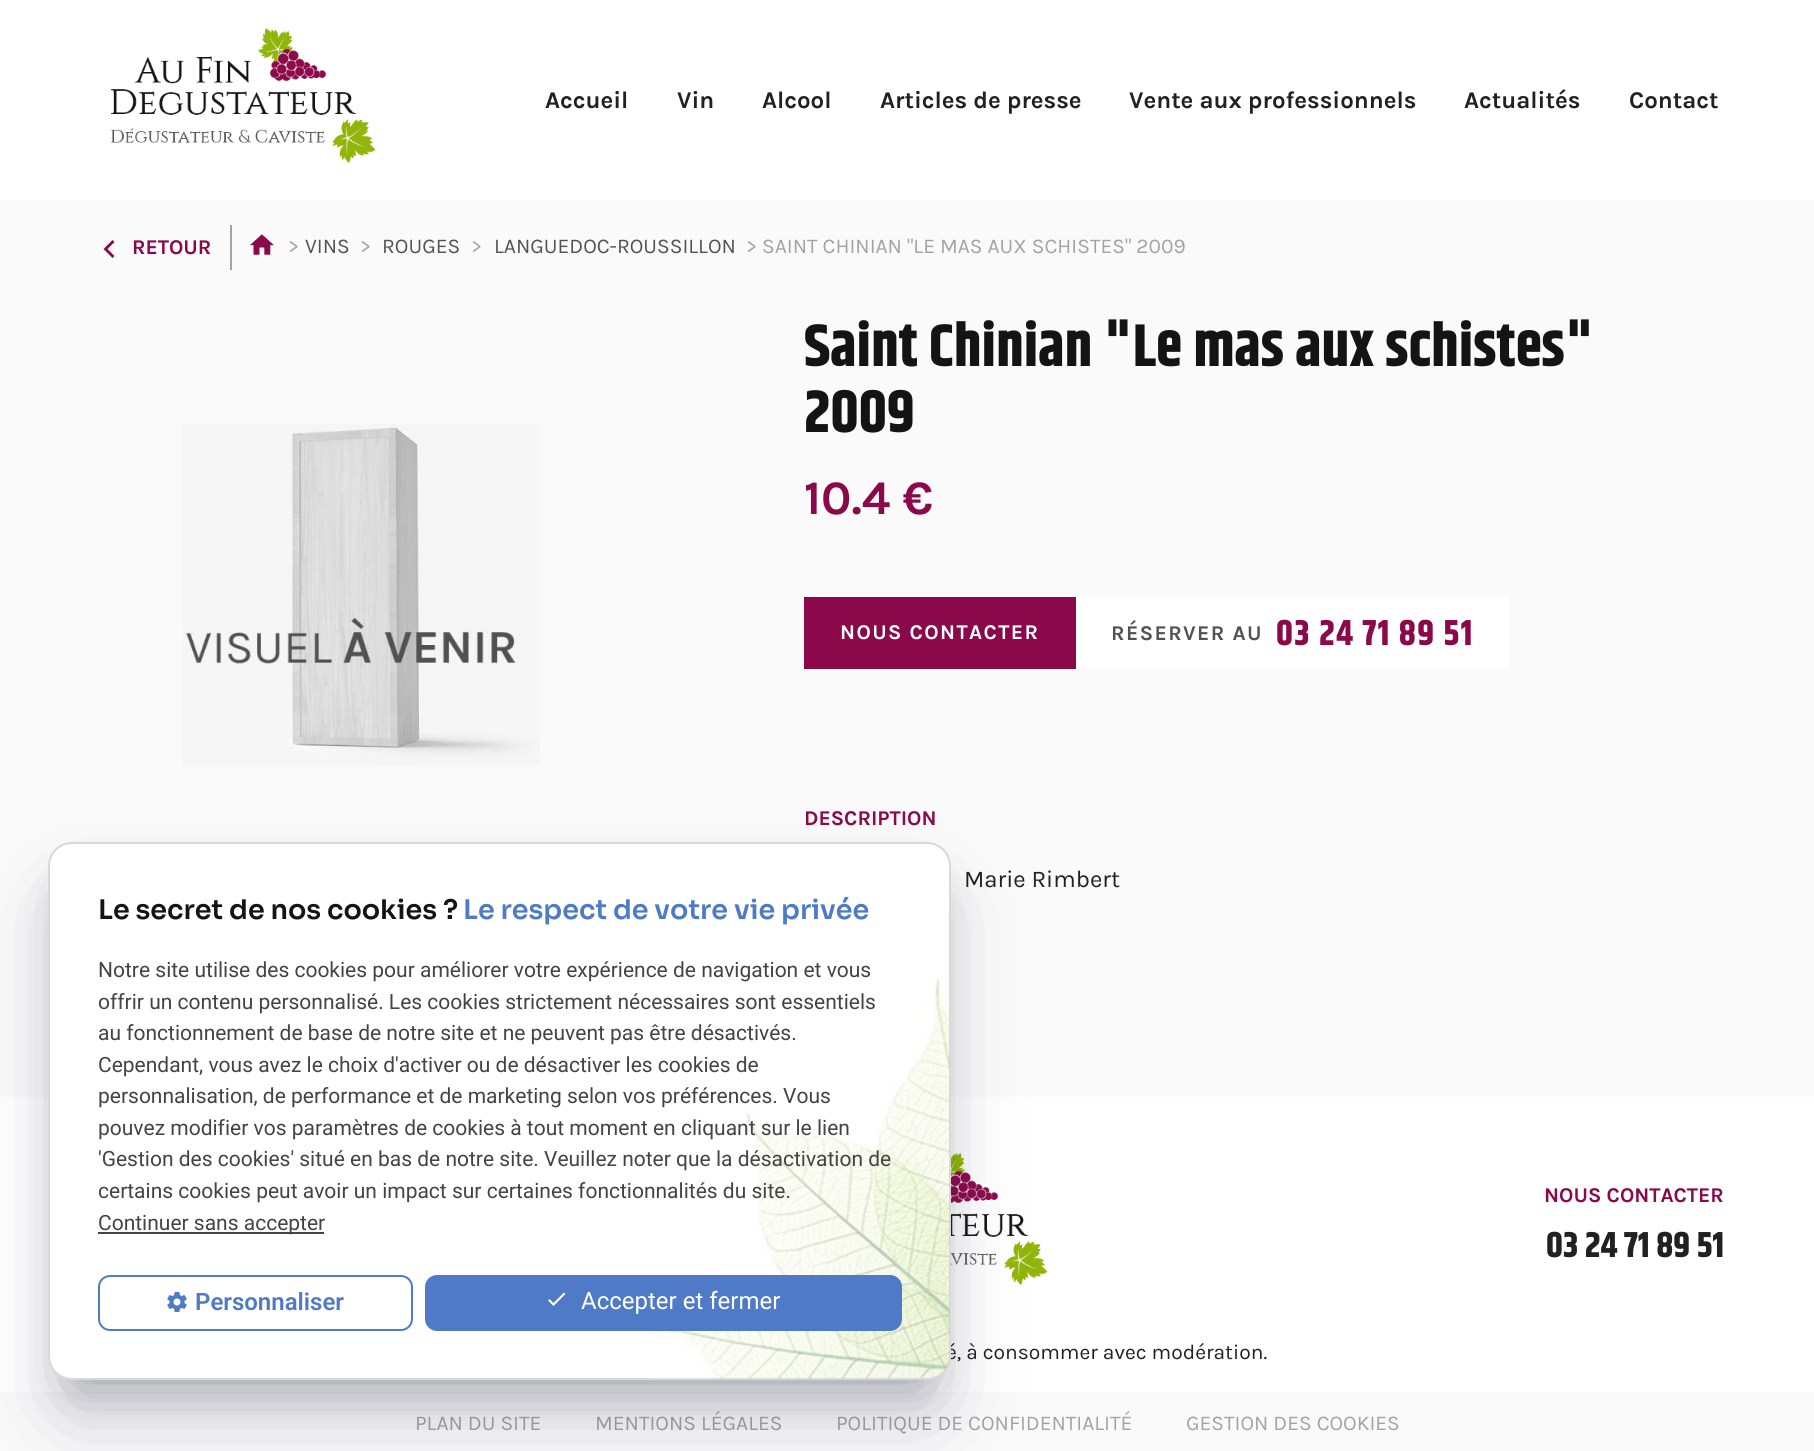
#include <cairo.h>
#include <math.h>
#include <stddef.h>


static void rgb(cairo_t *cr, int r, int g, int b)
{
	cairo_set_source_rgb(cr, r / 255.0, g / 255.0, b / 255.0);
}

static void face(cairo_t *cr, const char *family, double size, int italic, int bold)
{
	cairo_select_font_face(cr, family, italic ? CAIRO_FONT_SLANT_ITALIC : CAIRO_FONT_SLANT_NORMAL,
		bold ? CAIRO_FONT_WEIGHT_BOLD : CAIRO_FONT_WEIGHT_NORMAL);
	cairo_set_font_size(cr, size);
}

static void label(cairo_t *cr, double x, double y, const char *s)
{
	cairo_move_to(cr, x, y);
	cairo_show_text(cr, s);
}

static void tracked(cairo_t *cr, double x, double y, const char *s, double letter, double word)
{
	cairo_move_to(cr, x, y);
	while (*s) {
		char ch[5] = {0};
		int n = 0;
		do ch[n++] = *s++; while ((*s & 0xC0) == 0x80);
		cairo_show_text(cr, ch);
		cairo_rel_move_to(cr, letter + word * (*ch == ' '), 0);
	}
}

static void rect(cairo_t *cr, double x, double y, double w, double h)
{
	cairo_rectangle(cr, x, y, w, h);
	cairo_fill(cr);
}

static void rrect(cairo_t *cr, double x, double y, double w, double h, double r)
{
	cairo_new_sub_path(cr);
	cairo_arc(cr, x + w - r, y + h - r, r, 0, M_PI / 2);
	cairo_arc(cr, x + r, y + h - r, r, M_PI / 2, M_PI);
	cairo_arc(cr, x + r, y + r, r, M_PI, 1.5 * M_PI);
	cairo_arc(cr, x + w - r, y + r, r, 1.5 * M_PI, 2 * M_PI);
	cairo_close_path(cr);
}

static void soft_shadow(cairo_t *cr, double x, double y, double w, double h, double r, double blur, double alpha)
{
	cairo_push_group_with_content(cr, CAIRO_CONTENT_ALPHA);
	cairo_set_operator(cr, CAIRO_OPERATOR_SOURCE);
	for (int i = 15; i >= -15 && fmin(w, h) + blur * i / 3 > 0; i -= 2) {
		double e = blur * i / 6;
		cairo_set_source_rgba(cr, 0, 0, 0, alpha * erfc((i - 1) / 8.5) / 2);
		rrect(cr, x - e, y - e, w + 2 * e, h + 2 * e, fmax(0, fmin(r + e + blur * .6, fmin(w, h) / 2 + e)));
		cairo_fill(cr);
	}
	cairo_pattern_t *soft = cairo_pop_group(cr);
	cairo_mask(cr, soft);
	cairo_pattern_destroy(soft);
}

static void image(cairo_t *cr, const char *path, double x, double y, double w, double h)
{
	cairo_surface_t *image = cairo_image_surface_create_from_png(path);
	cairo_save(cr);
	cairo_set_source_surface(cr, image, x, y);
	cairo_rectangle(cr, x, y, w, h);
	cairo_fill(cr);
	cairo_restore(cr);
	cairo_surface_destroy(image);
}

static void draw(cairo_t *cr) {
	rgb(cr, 250, 250, 250);
	cairo_paint(cr);
	rgb(cr, 255, 255, 255);
	rect(cr, 0, 0, 1814, 201);
	image(cr, "image0.png", 111, 28, 265, 135);
	face(cr, "Karla", 24, 0, 1);
	rgb(cr, 33, 33, 33);
	label(cr, 545, 108, "Accueil");
	label(cr, 677, 108, "Vin");
	label(cr, 762, 108, "Alcool");
	label(cr, 880, 108, "Articles de presse");
	label(cr, 1129, 108, "Vente aux professionnels");
	label(cr, 1464, 108, "Actualités");
	label(cr, 1629, 108, "Contact");
	rgb(cr, 163, 163, 163);
	rect(cr, 230, 225, 2, 45);
	rgb(cr, 139, 9, 74);
	cairo_new_path(cr);
	cairo_move_to(cr, 114.5, 242);
	cairo_line_to(cr, 107.5, 249);
	cairo_line_to(cr, 114.5, 256);
	cairo_line_to(cr, 112.5, 258);
	cairo_line_to(cr, 103.5, 249);
	cairo_line_to(cr, 112.5, 240);
	cairo_close_path(cr);
	cairo_fill(cr);
	face(cr, "Karla", 21, 0, 1);
	label(cr, 132, 254, "RETOUR");
	image(cr, "image1.png", 250, 234, 24, 21);
	face(cr, "Karla", 21, 0, 0);
	rgb(cr, 163, 163, 163);
	label(cr, 288, 253, ">");
	rgb(cr, 82, 82, 82);
	label(cr, 305, 253, "VINS");
	rgb(cr, 163, 163, 163);
	label(cr, 360, 253, ">");
	rgb(cr, 82, 82, 82);
	label(cr, 382, 253, "ROUGES");
	rgb(cr, 163, 163, 163);
	label(cr, 471, 253, ">");
	rgb(cr, 82, 82, 82);
	label(cr, 494, 253, "LANGUEDOC-ROUSSILLON");
	rgb(cr, 163, 163, 163);
	label(cr, 746, 253, "> SAINT CHINIAN \"LE MAS AUX SCHISTES\" 2009");
	image(cr, "image2.png", 182, 423, 358, 343);
	face(cr, "Khand", 60, 0, 1);
	rgb(cr, 20, 20, 20);
	label(cr, 804, 366, "Saint Chinian \"Le mas aux schistes\"");
	label(cr, 804, 432, "2009");
	face(cr, "Karla", 48, 0, 1);
	rgb(cr, 139, 9, 74);
	label(cr, 804, 514, "10.4 €");
	rect(cr, 804, 597, 272, 72);
	face(cr, "Karla", 21, 0, 1);
	rgb(cr, 255, 255, 255);
	tracked(cr, 840, 639, "NOUS CONTACTER", 1.4, 0);
	rect(cr, 1076, 597, 433, 72);
	rgb(cr, 82, 82, 82);
	tracked(cr, 1111, 640, "RÉSERVER AU", 1.4, 0);
	face(cr, "Khand", 36, 0, 1);
	rgb(cr, 139, 9, 74);
	tracked(cr, 1276, 645, "03 24 71 89 51", 1.4, 0);
	face(cr, "Karla", 21, 0, 1);
	label(cr, 804, 825, "DESCRIPTION");
	face(cr, "Karla", 24, 0, 0);
	rgb(cr, 33, 33, 33);
	label(cr, 964, 887, "Marie Rimbert");
	rgb(cr, 255, 255, 255);
	rect(cr, 0, 1097, 1814, 295);
	image(cr, "image3.png", 951, 1152, 97, 133);
	face(cr, "Karla", 21, 0, 1);
	rgb(cr, 139, 9, 74);
	label(cr, 1544, 1202, "NOUS CONTACTER");
	face(cr, "Khand", 36, 0, 1);
	rgb(cr, 33, 33, 33);
	label(cr, 1546, 1257, "03 24 71 89 51");
	face(cr, "Karla", 21, 0, 0);
	label(cr, 946, 1359, "é, à consommer avec modération.");
	rgb(cr, 163, 163, 163);
	label(cr, 415, 1430, "PLAN DU SITE");
	label(cr, 595, 1430, "MENTIONS LÉGALES");
	label(cr, 836, 1430, "POLITIQUE DE CONFIDENTIALITÉ");
	label(cr, 1186, 1430, "GESTION DES COOKIES");
	rgb(cr, 0, 0, 0);
	soft_shadow(cr, 75, 896, 849, 484, 0, 27, 0.3);
	rgb(cr, 50, 50, 93);
	soft_shadow(cr, 66, 905, 867, 502, 6, 45, 0.25);
	rgb(cr, 255, 255, 255);
	rrect(cr, 49, 843, 901, 536, 23);
	cairo_fill_preserve(cr);
	rgb(cr, 217, 217, 217);
	cairo_stroke(cr);
	face(cr, "Sora SemiBold", 27, 0, 0);
	rgb(cr, 20, 20, 20);
	label(cr, 98, 919, "Le secret de nos cookies ?");
	rgb(cr, 78, 122, 199);
	label(cr, 463, 919, "Le respect de votre vie privée");
	image(cr, "image5.png", 649, 974, 301, 405);
	face(cr, "Roboto", 21, 0, 0);
	rgb(cr, 68, 68, 68);
	label(cr, 98, 977, "Notre site utilise des cookies pour améliorer votre expérience de navigation et vous");
	label(cr, 98, 1009, "offrir un contenu personnalisé. Les cookies strictement nécessaires sont essentiels");
	label(cr, 98, 1040, "au fonctionnement de base de notre site et ne peuvent pas être désactivés.");
	label(cr, 98, 1072, "Cependant, vous avez le choix d'activer ou de désactiver les cookies de");
	label(cr, 98, 1103, "personnalisation, de performance et de marketing selon vos préférences. Vous");
	label(cr, 98, 1135, "pouvez modifier vos paramètres de cookies à tout moment en cliquant sur le lien");
	label(cr, 98, 1166, "'Gestion des cookies' situé en bas de notre site. Veuillez noter que la désactivation de");
	label(cr, 98, 1198, "certains cookies peut avoir un impact sur certaines fonctionnalités du site.");
	rect(cr, 98, 1232, 226, 2);
	label(cr, 98, 1230, "Continuer sans accepter");
	rrect(cr, 99, 1276, 313, 54, 11);
	rgb(cr, 78, 122, 199);
	cairo_stroke(cr);
	image(cr, "image4.png", 167, 1292, 20, 20);
	face(cr, "Roboto SemiBold", 24, 0, 0);
	label(cr, 195, 1310, "Personnaliser");
	rrect(cr, 425, 1275, 477, 56, 12);
	cairo_fill(cr);
	rgb(cr, 255, 255, 255);
	cairo_new_path(cr);
	cairo_move_to(cr, 553.5, 1303);
	cairo_line_to(cr, 564, 1292.5);
	cairo_line_to(cr, 565.5, 1294);
	cairo_line_to(cr, 553.5, 1306);
	cairo_line_to(cr, 548, 1300.5);
	cairo_line_to(cr, 549.5, 1299);
	cairo_close_path(cr);
	cairo_fill(cr);
	face(cr, "Roboto", 24, 0, 0);
	label(cr, 581, 1309, "Accepter et fermer");
}

int main(void) {
	cairo_surface_t *surface = cairo_image_surface_create(CAIRO_FORMAT_RGB24, 1814, 1451);
	cairo_t *cr = cairo_create(surface);
	cairo_font_options_t *options = cairo_font_options_create();
	cairo_font_options_set_hint_metrics(options, CAIRO_HINT_METRICS_OFF);
	cairo_font_options_set_hint_style(options, CAIRO_HINT_STYLE_NONE);
	cairo_set_font_options(cr, options);
	cairo_set_miter_limit(cr, 4);
	draw(cr);
	cairo_surface_write_to_png(surface, "render.png");
	cairo_font_options_destroy(options);
	cairo_destroy(cr);
	cairo_surface_destroy(surface);
	return 0;
}
